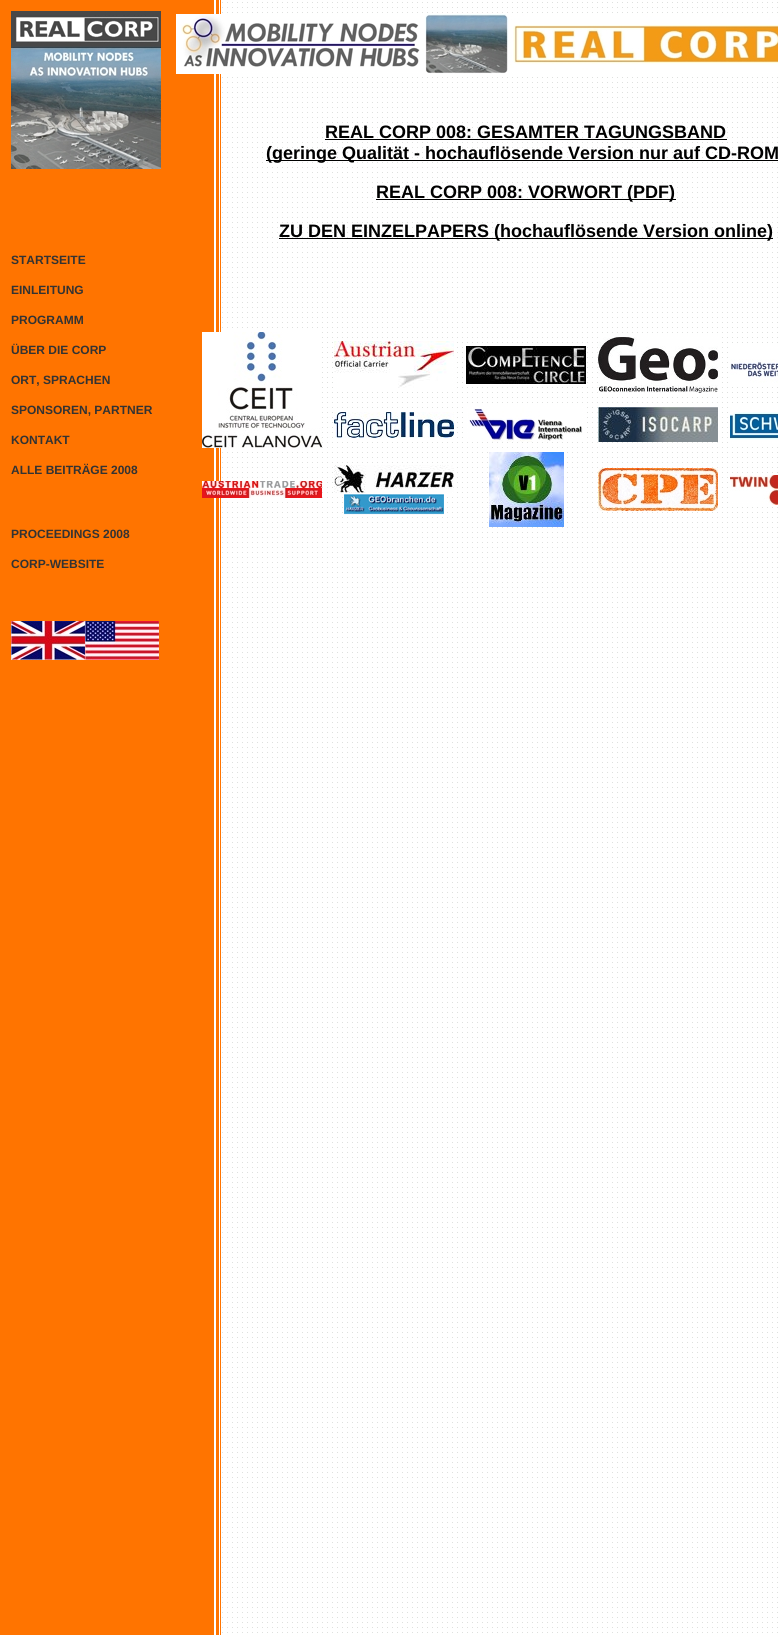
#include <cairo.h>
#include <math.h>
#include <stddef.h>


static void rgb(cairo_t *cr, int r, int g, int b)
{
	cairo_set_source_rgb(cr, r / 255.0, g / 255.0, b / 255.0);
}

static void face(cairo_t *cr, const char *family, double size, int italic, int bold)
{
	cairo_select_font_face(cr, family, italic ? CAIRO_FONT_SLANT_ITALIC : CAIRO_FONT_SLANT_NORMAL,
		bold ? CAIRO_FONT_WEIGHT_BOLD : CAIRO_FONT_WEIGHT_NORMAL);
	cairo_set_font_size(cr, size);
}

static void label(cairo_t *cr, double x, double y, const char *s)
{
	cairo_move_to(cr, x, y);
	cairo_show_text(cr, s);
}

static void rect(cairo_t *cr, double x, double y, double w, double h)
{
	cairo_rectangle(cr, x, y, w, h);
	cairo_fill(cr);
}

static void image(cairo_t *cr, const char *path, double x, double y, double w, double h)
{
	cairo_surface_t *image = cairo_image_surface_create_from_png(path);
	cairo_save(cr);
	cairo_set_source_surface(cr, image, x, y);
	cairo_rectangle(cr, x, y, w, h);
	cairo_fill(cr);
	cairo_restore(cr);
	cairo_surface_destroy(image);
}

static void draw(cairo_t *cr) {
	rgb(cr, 255, 255, 255);
	cairo_paint(cr);
	image(cr, "image0.png", 0, 0, 778, 1635);
	image(cr, "image1.png", 176, 14, 602, 60);
	face(cr, "Liberation Sans", 18, 0, 1);
	rgb(cr, 0, 0, 0);
	label(cr, 325, 138, "REAL CORP 008: GESAMTER TAGUNGSBAND");
	rect(cr, 325, 139, 402, 1);
	rect(cr, 266, 160, 512, 1);
	label(cr, 266, 159, "(geringe Qualität - hochauflösende Version nur auf CD-ROM");
	rect(cr, 376, 199, 300, 1);
	label(cr, 376, 198, "REAL CORP 008: VORWORT (PDF)");
	rect(cr, 279, 238, 494, 1);
	label(cr, 279, 237, "ZU DEN EINZELPAPERS (hochauflösende Version online)");
	image(cr, "image2.png", 202, 332, 120, 116);
	image(cr, "image3.png", 334, 341, 120, 47);
	image(cr, "image4.png", 466, 346, 120, 38);
	image(cr, "image5.png", 598, 337, 120, 56);
	image(cr, "image6.png", 730, 347, 48, 36);
	image(cr, "image7.png", 334, 412, 120, 26);
	image(cr, "image8.png", 467, 407, 116, 35);
	image(cr, "image9.png", 598, 407, 120, 35);
	image(cr, "image10.png", 730, 407, 48, 36);
	image(cr, "image11.png", 202, 481, 120, 7);
	image(cr, "image12.png", 202, 488, 120, 10);
	image(cr, "image13.png", 334, 465, 120, 28);
	image(cr, "image14.png", 344, 494, 100, 21);
	image(cr, "image15.png", 489, 452, 75, 75);
	image(cr, "image16.png", 598, 468, 120, 43);
	image(cr, "image17.png", 730, 475, 48, 30);
	image(cr, "image18.png", 11, 11, 150, 158);
	face(cr, "Liberation Sans", 12, 0, 1);
	rgb(cr, 51, 51, 51);
	label(cr, 11, 264, "STARTSEITE");
	label(cr, 11, 294, "EINLEITUNG");
	label(cr, 11, 324, "PROGRAMM");
	label(cr, 11, 354, "ÜBER DIE CORP");
	label(cr, 11, 384, "ORT, SPRACHEN");
	label(cr, 11, 414, "SPONSOREN, PARTNER");
	label(cr, 11, 444, "KONTAKT");
	label(cr, 11, 474, "ALLE BEITRÄGE 2008");
	label(cr, 11, 538, "PROCEEDINGS 2008");
	label(cr, 11, 568, "CORP-WEBSITE");
	image(cr, "image19.png", 11, 621, 74, 39);
	image(cr, "image20.png", 85, 621, 74, 39);
}

int main(void) {
	cairo_surface_t *surface = cairo_image_surface_create(CAIRO_FORMAT_RGB24, 778, 1635);
	cairo_t *cr = cairo_create(surface);
	cairo_font_options_t *options = cairo_font_options_create();
	cairo_font_options_set_hint_metrics(options, CAIRO_HINT_METRICS_OFF);
	cairo_font_options_set_hint_style(options, CAIRO_HINT_STYLE_NONE);
	cairo_set_font_options(cr, options);
	cairo_set_miter_limit(cr, 4);
	draw(cr);
	cairo_surface_write_to_png(surface, "render.png");
	cairo_font_options_destroy(options);
	cairo_destroy(cr);
	cairo_surface_destroy(surface);
	return 0;
}
